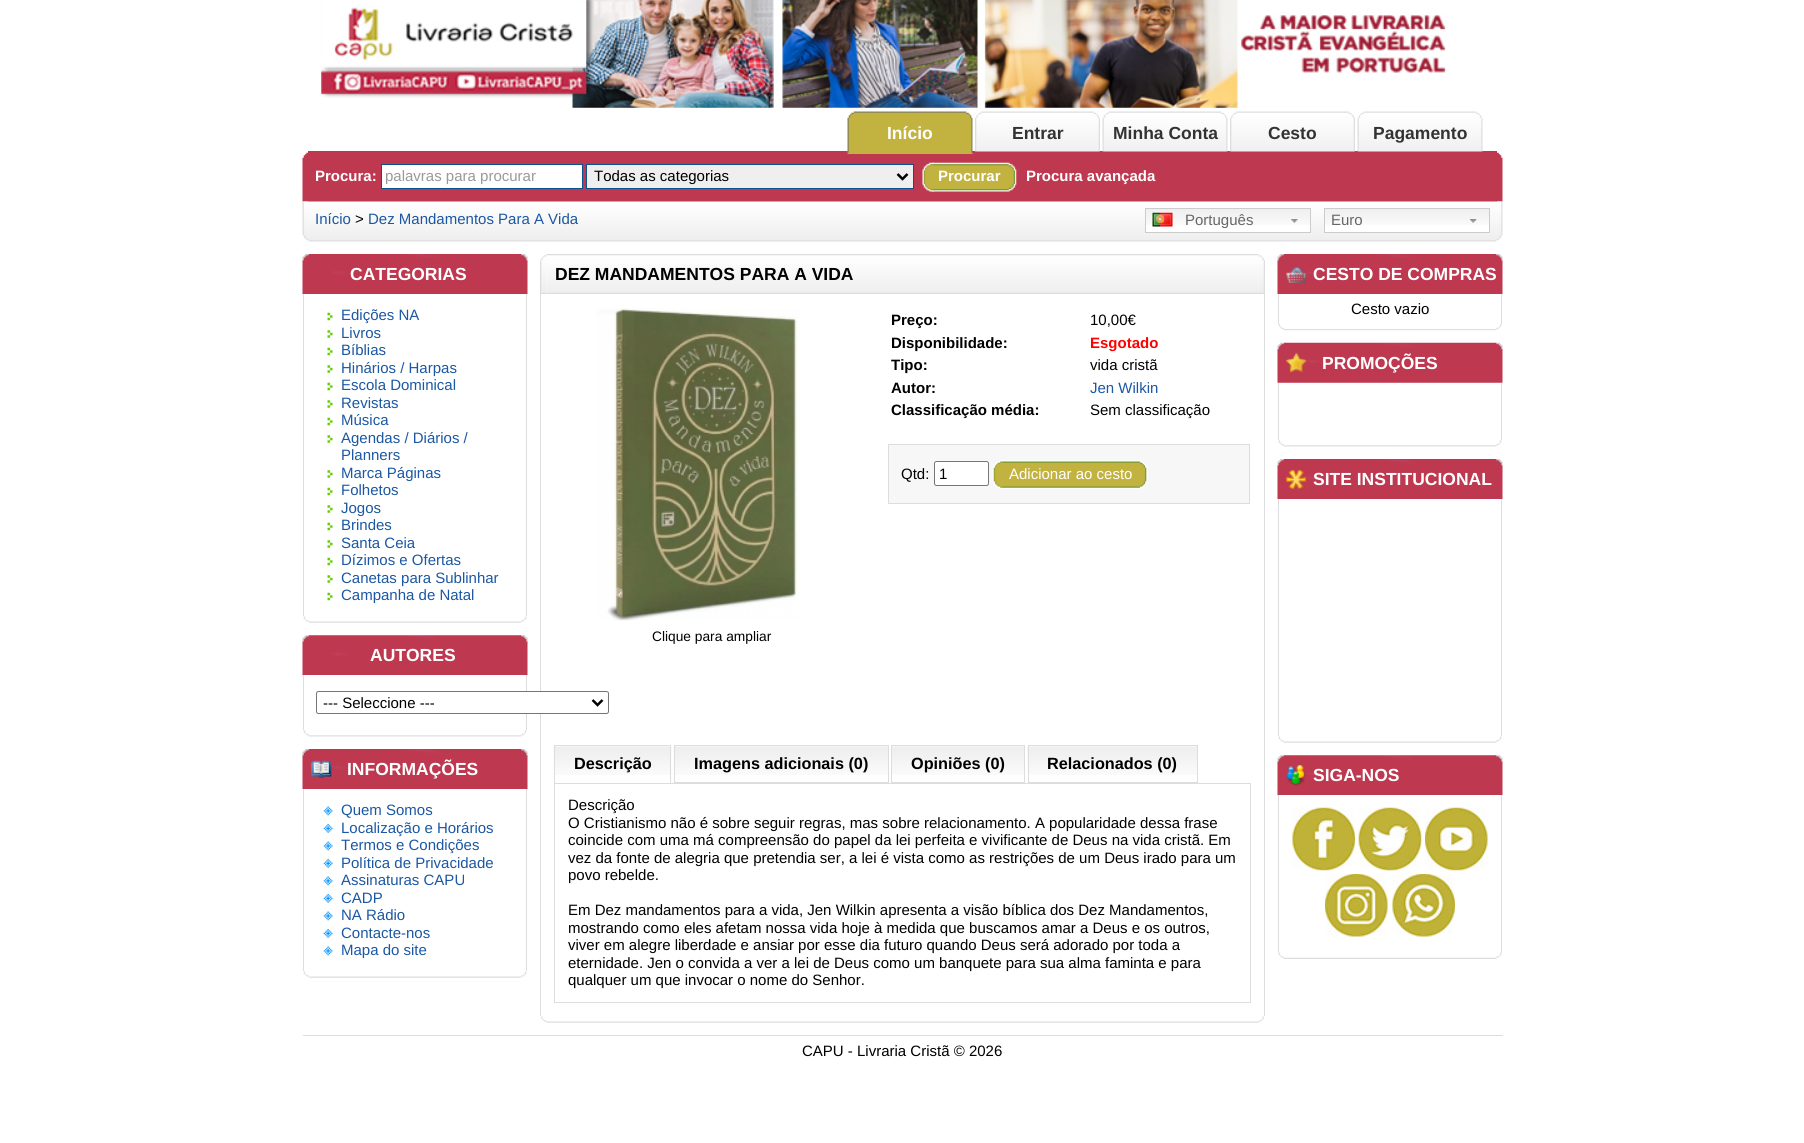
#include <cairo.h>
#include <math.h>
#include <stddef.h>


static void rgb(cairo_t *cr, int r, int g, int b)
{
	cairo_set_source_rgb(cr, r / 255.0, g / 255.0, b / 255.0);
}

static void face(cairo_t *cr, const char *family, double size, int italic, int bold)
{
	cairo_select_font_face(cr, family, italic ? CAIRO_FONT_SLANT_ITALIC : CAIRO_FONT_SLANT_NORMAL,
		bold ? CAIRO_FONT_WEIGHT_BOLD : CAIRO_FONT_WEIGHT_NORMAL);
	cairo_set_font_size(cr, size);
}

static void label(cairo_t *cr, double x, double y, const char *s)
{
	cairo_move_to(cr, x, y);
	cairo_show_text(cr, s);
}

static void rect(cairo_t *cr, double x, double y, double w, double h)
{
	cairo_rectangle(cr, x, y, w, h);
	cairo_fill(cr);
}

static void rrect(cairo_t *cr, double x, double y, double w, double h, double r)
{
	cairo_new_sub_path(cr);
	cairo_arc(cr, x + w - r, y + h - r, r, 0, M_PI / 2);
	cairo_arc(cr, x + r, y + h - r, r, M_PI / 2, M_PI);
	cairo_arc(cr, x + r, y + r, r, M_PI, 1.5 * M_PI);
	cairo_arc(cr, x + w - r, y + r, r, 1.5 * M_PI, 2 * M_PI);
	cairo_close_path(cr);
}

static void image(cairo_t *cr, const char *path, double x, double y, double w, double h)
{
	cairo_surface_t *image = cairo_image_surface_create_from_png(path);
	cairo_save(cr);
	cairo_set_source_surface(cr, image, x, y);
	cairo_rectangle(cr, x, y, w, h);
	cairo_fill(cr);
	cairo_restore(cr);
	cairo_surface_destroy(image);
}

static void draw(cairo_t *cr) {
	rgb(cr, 255, 255, 255);
	cairo_paint(cr);
	image(cr, "image0.png", 321, 0, 1125, 108);
	rgb(cr, 190, 56, 80);
	rect(cr, 308, 151, 1189, 51);
	image(cr, "image1.png", 847, 111, 126, 43);
	face(cr, "Liberation Sans", 17.5, 0, 1);
	rgb(cr, 255, 255, 255);
	label(cr, 887, 139, "Início");
	image(cr, "image2.png", 975, 111, 125, 41);
	rgb(cr, 51, 51, 51);
	label(cr, 1012, 139, "Entrar");
	image(cr, "image3.png", 1102, 111, 126, 41);
	label(cr, 1113, 139, "Minha Conta");
	image(cr, "image4.png", 1230, 111, 125, 41);
	label(cr, 1268, 139, "Cesto");
	image(cr, "image3.png", 1357, 111, 126, 41);
	label(cr, 1373, 139, "Pagamento");
	image(cr, "image10.png", 308, 201, 1189, 41);
	image(cr, "image5.png", 302, 152, 7, 50);
	face(cr, "Liberation Sans", 15, 0, 1);
	rgb(cr, 255, 255, 255);
	label(cr, 315, 181, "Procura:");
	cairo_rectangle(cr, 381.5, 164.5, 201, 24);
	cairo_fill_preserve(cr);
	rgb(cr, 10, 83, 145);
	cairo_set_line_width(cr, 1);
	cairo_stroke(cr);
	face(cr, "Liberation Sans", 15, 0, 0);
	rgb(cr, 153, 153, 153);
	label(cr, 385, 181, "palavras para procurar");
	rgb(cr, 239, 239, 239);
	cairo_rectangle(cr, 586.5, 164.5, 327, 24);
	cairo_fill_preserve(cr);
	rgb(cr, 10, 83, 145);
	cairo_stroke(cr);
	cairo_new_path(cr);
	cairo_move_to(cr, 897.5, 174);
	cairo_line_to(cr, 902.5, 179);
	cairo_line_to(cr, 907.5, 174);
	rgb(cr, 0, 0, 0);
	cairo_set_line_width(cr, 2.5);
	cairo_stroke(cr);
	label(cr, 594, 181, "Todas as categorias");
	image(cr, "image6.png", 922, 162, 12, 30);
	image(cr, "image7.png", 932, 162, 85, 30);
	face(cr, "Liberation Sans", 15, 0, 1);
	rgb(cr, 255, 255, 255);
	label(cr, 938, 181, "Procurar");
	label(cr, 1026, 181, "Procura avançada");
	image(cr, "image8.png", 1496, 152, 7, 50);
	image(cr, "image9.png", 302, 201, 7, 40);
	face(cr, "Liberation Sans", 15, 0, 0);
	rgb(cr, 27, 87, 163);
	label(cr, 315, 224, "Início");
	rgb(cr, 0, 0, 0);
	label(cr, 355, 224, ">");
	rgb(cr, 27, 87, 163);
	label(cr, 368, 224, "Dez Mandamentos Para A Vida");
	rgb(cr, 255, 255, 255);
	rect(cr, 1146, 225, 164, 7);
	image(cr, "image11.png", 1146, 209, 164, 16);
	image(cr, "image12.png", 1291, 219, 7, 4);
	cairo_rectangle(cr, 1145.5, 208.5, 165, 24);
	rgb(cr, 204, 204, 204);
	cairo_set_line_width(cr, 1);
	cairo_stroke(cr);
	image(cr, "image13.png", 1152, 212, 21, 15);
	rgb(cr, 102, 102, 102);
	label(cr, 1185, 225, "Português");
	rgb(cr, 255, 255, 255);
	rect(cr, 1325, 225, 164, 7);
	image(cr, "image11.png", 1325, 209, 164, 16);
	image(cr, "image14.png", 1470, 219, 7, 4);
	cairo_rectangle(cr, 1324.5, 208.5, 165, 24);
	rgb(cr, 204, 204, 204);
	cairo_stroke(cr);
	rgb(cr, 102, 102, 102);
	label(cr, 1331, 225, "Euro");
	image(cr, "image15.png", 1496, 201, 7, 40);
	image(cr, "image16.png", 302, 254, 226, 40);
	face(cr, "Liberation Sans", 17.5, 0, 1);
	rgb(cr, 255, 255, 255);
	label(cr, 350, 280, "CATEGORIAS");
	rgb(cr, 221, 221, 221);
	rect(cr, 526, 294, 1, 322);
	rect(cr, 303, 294, 1, 322);
	image(cr, "image17.png", 327, 312, 6, 9);
	face(cr, "Liberation Sans", 15, 0, 0);
	rgb(cr, 27, 87, 163);
	label(cr, 341, 320, "Edições NA");
	image(cr, "image18.png", 327, 330, 6, 8);
	label(cr, 341, 338, "Livros");
	image(cr, "image17.png", 327, 347, 6, 9);
	label(cr, 341, 355, "Bíblias");
	image(cr, "image18.png", 327, 365, 6, 8);
	label(cr, 341, 373, "Hinários / Harpas");
	image(cr, "image17.png", 327, 382, 6, 9);
	label(cr, 341, 390, "Escola Dominical");
	image(cr, "image18.png", 327, 400, 6, 8);
	label(cr, 341, 408, "Revistas");
	image(cr, "image17.png", 327, 417, 6, 9);
	label(cr, 341, 425, "Música");
	image(cr, "image18.png", 327, 435, 6, 8);
	label(cr, 341, 443, "Agendas / Diários /");
	label(cr, 341, 460, "Planners");
	image(cr, "image18.png", 327, 470, 6, 8);
	label(cr, 341, 478, "Marca Páginas");
	image(cr, "image17.png", 327, 487, 6, 9);
	label(cr, 341, 495, "Folhetos");
	image(cr, "image18.png", 327, 505, 6, 8);
	label(cr, 341, 513, "Jogos");
	image(cr, "image17.png", 327, 522, 6, 9);
	label(cr, 341, 530, "Brindes");
	image(cr, "image18.png", 327, 540, 6, 8);
	label(cr, 341, 548, "Santa Ceia");
	image(cr, "image17.png", 327, 557, 6, 9);
	label(cr, 341, 565, "Dízimos e Ofertas");
	image(cr, "image18.png", 327, 575, 6, 8);
	label(cr, 341, 583, "Canetas para Sublinhar");
	image(cr, "image17.png", 327, 592, 6, 9);
	label(cr, 341, 600, "Campanha de Natal");
	image(cr, "image19.png", 303, 616, 224, 7);
	image(cr, "image20.png", 302, 635, 226, 41);
	face(cr, "Liberation Sans", 17.5, 0, 1);
	rgb(cr, 255, 255, 255);
	label(cr, 370, 661, "AUTORES");
	rect(cr, 304, 675, 224, 1);
	rgb(cr, 221, 221, 221);
	rect(cr, 526, 675, 1, 55);
	rect(cr, 303, 675, 1, 55);
	rect(cr, 540, 294, 1, 722);
	rgb(cr, 255, 255, 255);
	rrect(cr, 316.5, 691.5, 292, 22, 2);
	cairo_fill_preserve(cr);
	rgb(cr, 118, 118, 118);
	cairo_stroke(cr);
	cairo_new_path(cr);
	cairo_move_to(cr, 592.5, 700);
	cairo_line_to(cr, 597.5, 705);
	cairo_line_to(cr, 602.5, 700);
	rgb(cr, 0, 0, 0);
	cairo_set_line_width(cr, 2.5);
	cairo_stroke(cr);
	face(cr, "Liberation Sans", 15, 0, 0);
	label(cr, 323, 708, "--- Seleccione ---");
	image(cr, "image21.png", 303, 730, 224, 7);
	image(cr, "image22.png", 302, 749, 226, 40);
	image(cr, "image23.png", 311, 760, 21, 18);
	face(cr, "Liberation Sans", 17.5, 0, 1);
	rgb(cr, 255, 255, 255);
	label(cr, 347, 775, "INFORMAÇÕES");
	rgb(cr, 221, 221, 221);
	rect(cr, 526, 789, 1, 182);
	rect(cr, 303, 789, 1, 182);
	image(cr, "image24.png", 323, 806, 10, 10);
	face(cr, "Liberation Sans", 15, 0, 0);
	rgb(cr, 27, 87, 163);
	label(cr, 341, 815, "Quem Somos");
	image(cr, "image25.png", 323, 824, 10, 9);
	label(cr, 341, 833, "Localização e Horários");
	image(cr, "image24.png", 323, 841, 10, 10);
	label(cr, 341, 850, "Termos e Condições");
	image(cr, "image25.png", 323, 859, 10, 9);
	label(cr, 341, 868, "Política de Privacidade");
	image(cr, "image24.png", 323, 876, 10, 10);
	label(cr, 341, 885, "Assinaturas CAPU");
	image(cr, "image25.png", 323, 894, 10, 9);
	label(cr, 341, 903, "CADP");
	image(cr, "image24.png", 323, 911, 10, 10);
	label(cr, 341, 920, "NA Rádio");
	image(cr, "image25.png", 323, 929, 10, 9);
	label(cr, 341, 938, "Contacte-nos");
	image(cr, "image24.png", 323, 946, 10, 10);
	label(cr, 341, 955, "Mapa do site");
	image(cr, "image19.png", 303, 971, 224, 7);
	image(cr, "image27.png", 546, 254, 713, 40);
	image(cr, "image26.png", 540, 255, 7, 39);
	face(cr, "Liberation Sans", 17.5, 0, 1);
	rgb(cr, 0, 0, 0);
	label(cr, 555, 280, "DEZ MANDAMENTOS PARA A VIDA");
	image(cr, "image28.png", 1258, 255, 7, 39);
	rgb(cr, 221, 221, 221);
	rect(cr, 1264, 294, 1, 722);
	face(cr, "Liberation Sans", 15, 0, 1);
	rgb(cr, 0, 0, 0);
	label(cr, 891, 325, "Preço:");
	face(cr, "Liberation Sans", 15, 0, 0);
	label(cr, 1090, 325, "10,00€");
	face(cr, "Liberation Sans", 15, 0, 1);
	label(cr, 891, 348, "Disponibilidade:");
	rgb(cr, 255, 0, 0);
	label(cr, 1090, 348, "Esgotado");
	rgb(cr, 0, 0, 0);
	label(cr, 891, 370, "Tipo:");
	face(cr, "Liberation Sans", 15, 0, 0);
	label(cr, 1090, 370, "vida cristã");
	face(cr, "Liberation Sans", 15, 0, 1);
	label(cr, 891, 393, "Autor:");
	face(cr, "Liberation Sans", 15, 0, 0);
	rgb(cr, 27, 87, 163);
	label(cr, 1090, 393, "Jen Wilkin");
	face(cr, "Liberation Sans", 15, 0, 1);
	rgb(cr, 0, 0, 0);
	label(cr, 891, 415, "Classificação média:");
	face(cr, "Liberation Sans", 15, 0, 0);
	label(cr, 1090, 415, "Sem classificação");
	rgb(cr, 247, 247, 247);
	cairo_rectangle(cr, 888.5, 444.5, 361, 59);
	cairo_fill_preserve(cr);
	rgb(cr, 221, 221, 221);
	cairo_set_line_width(cr, 1);
	cairo_stroke(cr);
	rgb(cr, 0, 0, 0);
	label(cr, 901, 479, "Qtd:");
	rgb(cr, 255, 255, 255);
	rrect(cr, 934.5, 461.5, 54, 24, 2);
	cairo_fill_preserve(cr);
	rgb(cr, 118, 118, 118);
	cairo_stroke(cr);
	rgb(cr, 0, 0, 0);
	label(cr, 939, 479, "1");
	image(cr, "image29.png", 992, 460, 12, 29);
	image(cr, "image30.png", 1002, 460, 146, 29);
	rgb(cr, 255, 255, 255);
	label(cr, 1009, 479, "Adicionar ao cesto");
	image(cr, "image31.png", 596, 308, 204, 313);
	face(cr, "Liberation Sans", 13.75, 0, 0);
	rgb(cr, 0, 0, 0);
	label(cr, 652, 641, "Clique para ampliar");
	image(cr, "image32.png", 553, 746, 119, 29);
	rgb(cr, 221, 221, 221);
	rect(cr, 554, 745, 117, 1);
	rect(cr, 670, 745, 1, 38);
	rect(cr, 554, 745, 1, 38);
	face(cr, "Liberation Sans", 16.25, 0, 1);
	rgb(cr, 0, 0, 0);
	label(cr, 574, 769, "Descrição");
	image(cr, "image33.png", 673, 746, 215, 29);
	cairo_rectangle(cr, 674.5, 745.5, 214, 37);
	rgb(cr, 221, 221, 221);
	cairo_stroke(cr);
	rgb(cr, 0, 0, 0);
	label(cr, 694, 769, "Imagens adicionais (0)");
	image(cr, "image34.png", 892, 746, 132, 29);
	cairo_rectangle(cr, 891.5, 745.5, 133, 37);
	rgb(cr, 221, 221, 221);
	cairo_stroke(cr);
	rgb(cr, 0, 0, 0);
	label(cr, 911, 769, "Opiniões (0)");
	image(cr, "image35.png", 1027, 746, 170, 29);
	cairo_rectangle(cr, 1028.5, 745.5, 169, 37);
	rgb(cr, 221, 221, 221);
	cairo_stroke(cr);
	rgb(cr, 0, 0, 0);
	label(cr, 1047, 769, "Relacionados (0)");
	cairo_rectangle(cr, 554.5, 783.5, 696, 219);
	rgb(cr, 221, 221, 221);
	cairo_stroke(cr);
	face(cr, "Liberation Sans", 15, 0, 0);
	rgb(cr, 0, 0, 0);
	label(cr, 568, 810, "Descrição");
	label(cr, 568, 828, "O Cristianismo não é sobre seguir regras, mas sobre relacionamento. A popularidade dessa frase");
	label(cr, 568, 845, "coincide com uma má compreensão do papel da lei perfeita e vivificante de Deus na vida cristã. Em");
	label(cr, 568, 863, "vez da fonte de alegria que pretendia ser, a lei é vista como as restrições de um Deus irado para um");
	label(cr, 568, 880, "povo rebelde.");
	label(cr, 568, 915, "Em Dez mandamentos para a vida, Jen Wilkin apresenta a visão bíblica dos Dez Mandamentos,");
	label(cr, 568, 933, "mostrando como eles afetam nossa vida hoje à medida que buscamos amar a Deus e os outros,");
	label(cr, 568, 950, "viver em alegre liberdade e ansiar por esse dia futuro quando Deus será adorado por toda a");
	label(cr, 568, 968, "eternidade. Jen o convida a ver a lei de Deus como um banquete para sua alma faminta e para");
	label(cr, 568, 985, "qualquer um que invocar o nome do Senhor.");
	image(cr, "image37.png", 546, 1021, 713, 2);
	image(cr, "image36.png", 541, 1016, 6, 6);
	image(cr, "image38.png", 1258, 1016, 6, 6);
	image(cr, "image16.png", 1277, 254, 226, 40);
	image(cr, "image39.png", 1286, 267, 21, 16);
	face(cr, "Liberation Sans", 17.5, 0, 1);
	rgb(cr, 255, 255, 255);
	label(cr, 1313, 280, "CESTO DE COMPRAS");
	rgb(cr, 221, 221, 221);
	rect(cr, 1501, 294, 1, 30);
	rect(cr, 1278, 294, 1, 30);
	face(cr, "Liberation Sans", 15, 0, 0);
	rgb(cr, 0, 0, 0);
	label(cr, 1351, 314, "Cesto vazio");
	image(cr, "image40.png", 1278, 324, 224, 7);
	image(cr, "image41.png", 1277, 342, 226, 41);
	image(cr, "image42.png", 1286, 352, 21, 21);
	face(cr, "Liberation Sans", 17.5, 0, 1);
	rgb(cr, 255, 255, 255);
	label(cr, 1322, 369, "PROMOÇÕES");
	rgb(cr, 221, 221, 221);
	rect(cr, 1501, 383, 1, 57);
	rect(cr, 1278, 383, 1, 57);
	image(cr, "image21.png", 1278, 440, 224, 7);
	image(cr, "image22.png", 1277, 459, 226, 40);
	image(cr, "image43.png", 1286, 470, 21, 19);
	rgb(cr, 255, 255, 255);
	label(cr, 1313, 485, "SITE INSTITUCIONAL");
	rgb(cr, 221, 221, 221);
	rect(cr, 1501, 499, 1, 237);
	rect(cr, 1278, 499, 1, 237);
	image(cr, "image19.png", 1278, 736, 224, 7);
	image(cr, "image20.png", 1277, 755, 226, 41);
	image(cr, "image44.png", 1286, 765, 19, 21);
	rgb(cr, 255, 255, 255);
	label(cr, 1313, 781, "SIGA-NOS");
	rect(cr, 1279, 795, 224, 1);
	rgb(cr, 221, 221, 221);
	rect(cr, 1501, 795, 1, 158);
	rect(cr, 1278, 795, 1, 158);
	image(cr, "image45.png", 1292, 807, 63, 64);
	image(cr, "image46.png", 1358, 807, 64, 64);
	image(cr, "image47.png", 1425, 807, 63, 64);
	image(cr, "image48.png", 1325, 874, 63, 63);
	image(cr, "image49.png", 1392, 874, 63, 63);
	image(cr, "image50.png", 1278, 952, 224, 7);
	rect(cr, 303, 1035, 1200, 1);
	face(cr, "Liberation Sans", 15, 0, 0);
	rgb(cr, 0, 0, 0);
	label(cr, 802, 1056, "CAPU - Livraria Cristã © 2026");
}

int main(void) {
	cairo_surface_t *surface = cairo_image_surface_create(CAIRO_FORMAT_RGB24, 1804, 1143);
	cairo_t *cr = cairo_create(surface);
	cairo_font_options_t *options = cairo_font_options_create();
	cairo_font_options_set_hint_metrics(options, CAIRO_HINT_METRICS_OFF);
	cairo_font_options_set_hint_style(options, CAIRO_HINT_STYLE_NONE);
	cairo_set_font_options(cr, options);
	cairo_set_miter_limit(cr, 4);
	draw(cr);
	cairo_surface_write_to_png(surface, "render.png");
	cairo_font_options_destroy(options);
	cairo_destroy(cr);
	cairo_surface_destroy(surface);
	return 0;
}
